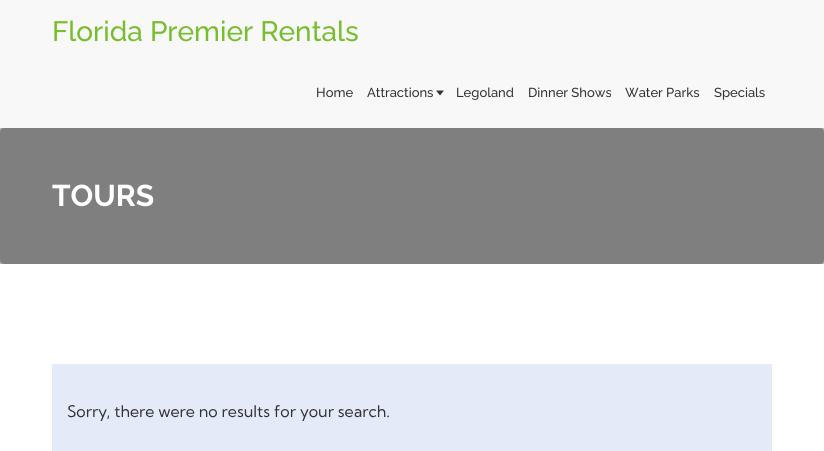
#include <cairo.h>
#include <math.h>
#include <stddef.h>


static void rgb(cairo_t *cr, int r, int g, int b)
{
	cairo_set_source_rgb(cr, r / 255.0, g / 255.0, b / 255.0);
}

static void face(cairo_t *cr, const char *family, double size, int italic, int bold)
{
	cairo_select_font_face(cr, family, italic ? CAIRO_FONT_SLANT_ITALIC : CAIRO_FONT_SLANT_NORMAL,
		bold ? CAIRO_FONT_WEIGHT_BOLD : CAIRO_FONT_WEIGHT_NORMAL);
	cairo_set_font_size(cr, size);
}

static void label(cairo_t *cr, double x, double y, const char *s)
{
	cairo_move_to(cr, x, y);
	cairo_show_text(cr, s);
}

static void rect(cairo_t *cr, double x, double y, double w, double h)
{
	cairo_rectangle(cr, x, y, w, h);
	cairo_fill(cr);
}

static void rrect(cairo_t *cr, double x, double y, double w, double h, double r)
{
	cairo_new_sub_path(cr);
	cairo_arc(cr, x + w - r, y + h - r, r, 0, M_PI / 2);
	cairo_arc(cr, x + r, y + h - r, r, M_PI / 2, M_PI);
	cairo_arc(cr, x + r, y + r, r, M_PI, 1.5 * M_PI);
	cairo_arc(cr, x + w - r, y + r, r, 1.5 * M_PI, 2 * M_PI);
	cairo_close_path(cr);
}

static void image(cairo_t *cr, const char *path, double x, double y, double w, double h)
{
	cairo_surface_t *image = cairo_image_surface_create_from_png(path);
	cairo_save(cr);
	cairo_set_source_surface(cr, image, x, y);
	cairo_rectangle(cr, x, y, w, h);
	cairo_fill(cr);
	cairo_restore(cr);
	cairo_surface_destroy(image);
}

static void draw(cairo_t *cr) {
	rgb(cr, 255, 255, 255);
	cairo_paint(cr);
	rgb(cr, 178, 178, 178);
	rect(cr, 0, 128, 824, 136);
	rgb(cr, 248, 248, 248);
	rect(cr, 0, 0, 824, 128);
	face(cr, "Raleway Medium", 28, 0, 0);
	rgb(cr, 119, 190, 45);
	label(cr, 52, 41, "Florida Premier Rentals");
	face(cr, "Raleway Medium", 13, 0, 0);
	rgb(cr, 51, 51, 51);
	label(cr, 316, 97, "Home");
	label(cr, 367, 97, "Attractions");
	cairo_new_path(cr);
	cairo_move_to(cr, 436, 90.5);
	cairo_line_to(cr, 444, 90.5);
	cairo_line_to(cr, 440, 95.5);
	cairo_close_path(cr);
	cairo_fill(cr);
	label(cr, 456, 97, "Legoland");
	label(cr, 528, 97, "Dinner Shows");
	label(cr, 625, 97, "Water Parks");
	label(cr, 714, 97, "Specials");
	rgb(cr, 127, 127, 127);
	rrect(cr, 0, 128, 824, 136, 4);
	cairo_fill(cr);
	face(cr, "Raleway", 30, 0, 1);
	rgb(cr, 255, 255, 255);
	label(cr, 52, 206, "TOURS");
	image(cr, "image0.png", 52, 364, 720, 87);
}

int main(void) {
	cairo_surface_t *surface = cairo_image_surface_create(CAIRO_FORMAT_RGB24, 824, 451);
	cairo_t *cr = cairo_create(surface);
	cairo_font_options_t *options = cairo_font_options_create();
	cairo_font_options_set_hint_metrics(options, CAIRO_HINT_METRICS_OFF);
	cairo_font_options_set_hint_style(options, CAIRO_HINT_STYLE_NONE);
	cairo_set_font_options(cr, options);
	cairo_set_miter_limit(cr, 4);
	draw(cr);
	cairo_surface_write_to_png(surface, "render.png");
	cairo_font_options_destroy(options);
	cairo_destroy(cr);
	cairo_surface_destroy(surface);
	return 0;
}
